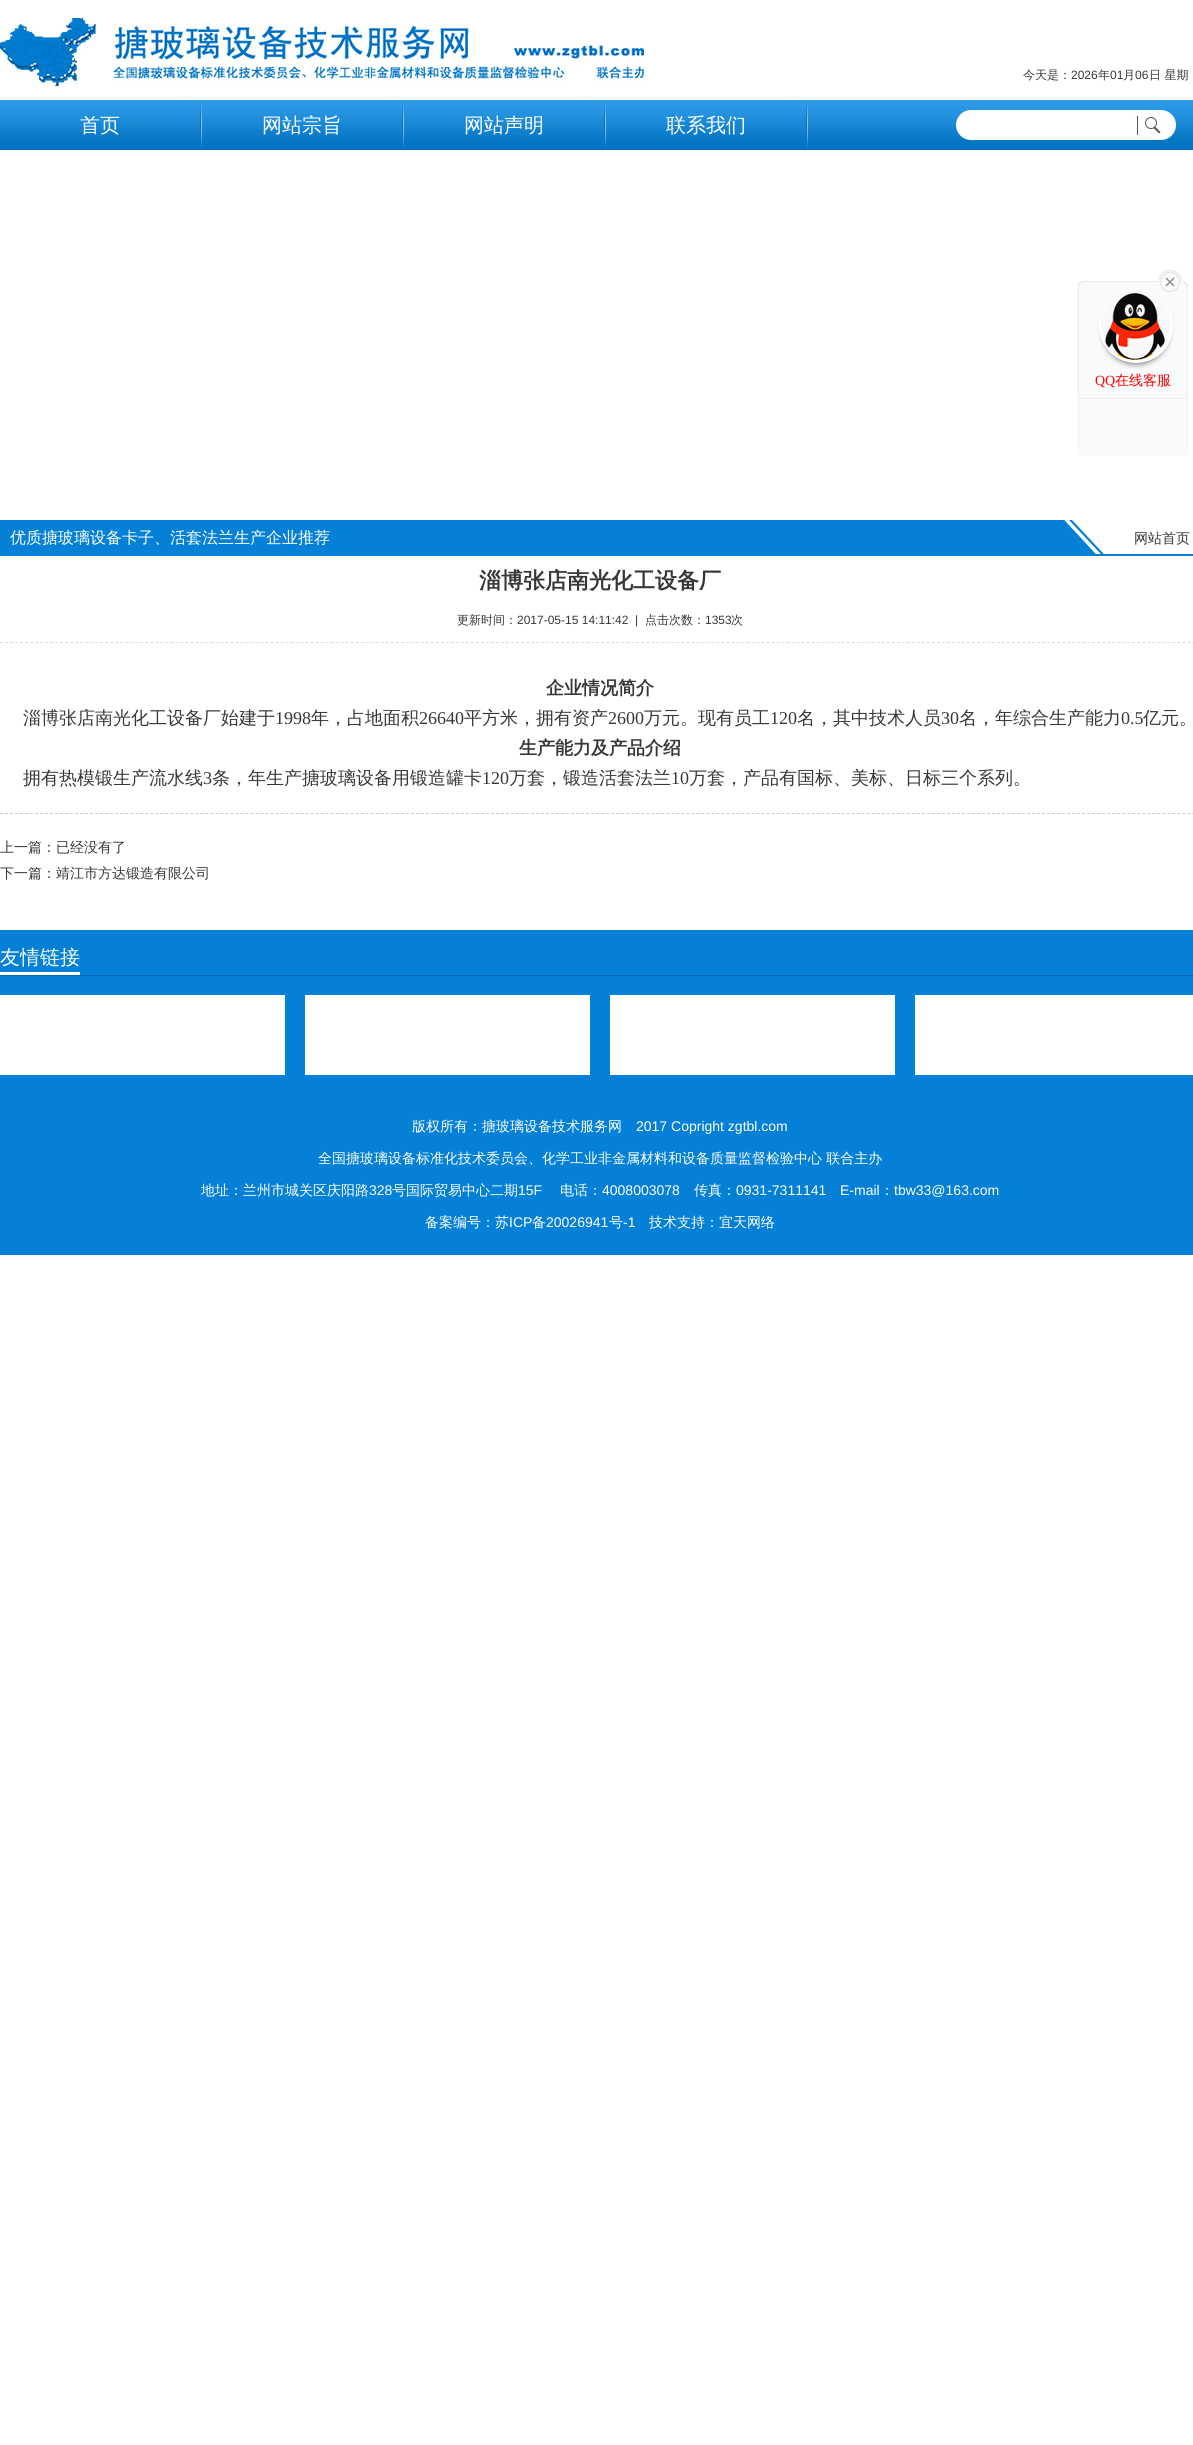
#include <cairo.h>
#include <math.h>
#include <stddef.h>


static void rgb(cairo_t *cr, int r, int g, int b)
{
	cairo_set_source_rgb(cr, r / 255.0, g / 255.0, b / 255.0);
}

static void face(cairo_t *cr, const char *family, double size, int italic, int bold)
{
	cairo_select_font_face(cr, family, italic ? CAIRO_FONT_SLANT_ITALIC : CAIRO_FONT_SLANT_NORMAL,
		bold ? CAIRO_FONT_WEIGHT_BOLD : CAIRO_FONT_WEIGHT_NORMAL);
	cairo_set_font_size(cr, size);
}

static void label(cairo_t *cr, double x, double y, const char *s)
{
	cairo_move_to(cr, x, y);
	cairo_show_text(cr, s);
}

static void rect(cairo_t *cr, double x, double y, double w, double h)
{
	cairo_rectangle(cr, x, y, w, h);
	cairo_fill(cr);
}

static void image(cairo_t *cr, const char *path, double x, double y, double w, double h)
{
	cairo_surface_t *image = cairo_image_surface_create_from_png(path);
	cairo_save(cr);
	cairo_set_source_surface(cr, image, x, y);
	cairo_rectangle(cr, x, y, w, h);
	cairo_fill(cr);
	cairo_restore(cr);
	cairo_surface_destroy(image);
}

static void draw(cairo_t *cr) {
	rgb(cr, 255, 255, 255);
	cairo_paint(cr);
	image(cr, "image0.png", 0, 18, 647, 68);
	face(cr, "WenQuanYi Zen Hei Medium", 12, 0, 0);
	rgb(cr, 55, 55, 55);
	label(cr, 1023, 79, "今天是：");
	face(cr, "Liberation Sans", 12, 0, 0);
	label(cr, 1071, 79, "2026");
	face(cr, "WenQuanYi Zen Hei Medium", 12, 0, 0);
	label(cr, 1098, 79, "年");
	face(cr, "Liberation Sans", 12, 0, 0);
	label(cr, 1110, 79, "01");
	face(cr, "WenQuanYi Zen Hei Medium", 12, 0, 0);
	label(cr, 1123, 79, "月");
	face(cr, "Liberation Sans", 12, 0, 0);
	label(cr, 1135, 79, "06");
	face(cr, "WenQuanYi Zen Hei Medium", 12, 0, 0);
	label(cr, 1149, 79, "日 星期");
	image(cr, "image1.png", 0, 100, 1193, 50);
	face(cr, "WenQuanYi Zen Hei Medium", 20, 0, 0);
	rgb(cr, 255, 255, 255);
	label(cr, 80, 132, "首页");
	image(cr, "image2.png", 200, 102, 2, 47);
	label(cr, 262, 132, "网站宗旨");
	image(cr, "image2.png", 402, 102, 2, 47);
	label(cr, 464, 132, "网站声明");
	image(cr, "image2.png", 604, 102, 2, 47);
	label(cr, 666, 132, "联系我们");
	image(cr, "image2.png", 806, 102, 2, 47);
	image(cr, "image3.png", 956, 110, 220, 30);
	image(cr, "image4.png", 1078, 270, 110, 22);
	image(cr, "image5.png", 1078, 292, 110, 107);
	face(cr, "Liberation Serif", 14, 0, 0);
	rgb(cr, 255, 0, 0);
	label(cr, 1095, 385, "QQ");
	face(cr, "WenQuanYi Zen Hei Medium", 14, 0, 0);
	label(cr, 1115, 385, "在线客服");
	rgb(cr, 249, 250, 251);
	rect(cr, 1079, 399, 108, 48);
	rgb(cr, 238, 239, 240);
	rect(cr, 1187, 399, 1, 48);
	rect(cr, 1078, 399, 1, 48);
	rgb(cr, 249, 250, 251);
	rect(cr, 1078, 447, 110, 9);
	rgb(cr, 4, 128, 215);
	rect(cr, 0, 520, 1193, 36);
	face(cr, "WenQuanYi Zen Hei Medium", 16, 0, 0);
	rgb(cr, 255, 255, 255);
	label(cr, 10, 543, "优质搪玻璃设备卡子、活套法兰生产企业推荐");
	image(cr, "image6.png", 1064, 520, 129, 34);
	face(cr, "WenQuanYi Zen Hei Medium", 14, 0, 0);
	rgb(cr, 55, 55, 55);
	label(cr, 1134, 543, "网站首页");
	face(cr, "WenQuanYi Zen Hei", 22, 0, 1);
	label(cr, 479, 588, "淄博张店南光化工设备厂");
	cairo_new_path(cr);
	cairo_move_to(cr, 0, 642.5);
	cairo_line_to(cr, 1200, 642.5);
	rgb(cr, 221, 221, 221);
	cairo_set_line_width(cr, 1);
	cairo_set_dash(cr, (double[]){3, 2.01}, 2, 0);
	cairo_stroke(cr);
	face(cr, "WenQuanYi Zen Hei Medium", 12, 0, 0);
	rgb(cr, 55, 55, 55);
	label(cr, 457, 624, "更新时间：");
	face(cr, "Liberation Sans", 12, 0, 0);
	label(cr, 517, 624, "2017-05-15 14:11:42  |");
	face(cr, "WenQuanYi Zen Hei Medium", 12, 0, 0);
	label(cr, 645, 624, "点击次数：");
	face(cr, "Liberation Sans", 12, 0, 0);
	label(cr, 705, 624, "1353");
	face(cr, "WenQuanYi Zen Hei Medium", 12, 0, 0);
	label(cr, 731, 624, "次");
	face(cr, "WenQuanYi Zen Hei", 18, 0, 1);
	label(cr, 546, 694, "企业情况简介");
	face(cr, "WenQuanYi Zen Hei Medium", 18, 0, 0);
	label(cr, 23, 724, "淄博张店南光化工设备厂始建于");
	face(cr, "Liberation Serif", 18, 0, 0);
	label(cr, 275, 724, "1998");
	face(cr, "WenQuanYi Zen Hei Medium", 18, 0, 0);
	label(cr, 311, 724, "年，占地面积");
	face(cr, "Liberation Serif", 18, 0, 0);
	label(cr, 419, 724, "26640");
	face(cr, "WenQuanYi Zen Hei Medium", 18, 0, 0);
	label(cr, 464, 724, "平方米，拥有资产");
	face(cr, "Liberation Serif", 18, 0, 0);
	label(cr, 608, 724, "2600");
	face(cr, "WenQuanYi Zen Hei Medium", 18, 0, 0);
	label(cr, 644, 724, "万元。现有员工");
	face(cr, "Liberation Serif", 18, 0, 0);
	label(cr, 770, 724, "120");
	face(cr, "WenQuanYi Zen Hei Medium", 18, 0, 0);
	label(cr, 797, 724, "名，其中技术人员");
	face(cr, "Liberation Serif", 18, 0, 0);
	label(cr, 941, 724, "30");
	face(cr, "WenQuanYi Zen Hei Medium", 18, 0, 0);
	label(cr, 959, 724, "名，年综合生产能力");
	face(cr, "Liberation Serif", 18, 0, 0);
	label(cr, 1121, 724, "0.5");
	face(cr, "WenQuanYi Zen Hei Medium", 18, 0, 0);
	label(cr, 1143, 724, "亿元。");
	face(cr, "WenQuanYi Zen Hei", 18, 0, 1);
	label(cr, 519, 754, "生产能力及产品介绍");
	face(cr, "WenQuanYi Zen Hei Medium", 18, 0, 0);
	label(cr, 23, 784, "拥有热模锻生产流水线");
	face(cr, "Liberation Serif", 18, 0, 0);
	label(cr, 203, 784, "3");
	face(cr, "WenQuanYi Zen Hei Medium", 18, 0, 0);
	label(cr, 212, 784, "条，年生产搪玻璃设备用锻造罐卡");
	face(cr, "Liberation Serif", 18, 0, 0);
	label(cr, 482, 784, "120");
	face(cr, "WenQuanYi Zen Hei Medium", 18, 0, 0);
	label(cr, 509, 784, "万套，锻造活套法兰");
	face(cr, "Liberation Serif", 18, 0, 0);
	label(cr, 671, 784, "10");
	face(cr, "WenQuanYi Zen Hei Medium", 18, 0, 0);
	label(cr, 689, 784, "万套，产品有国标、美标、日标三个系列。");
	cairo_new_path(cr);
	cairo_move_to(cr, 0, 813.5);
	cairo_line_to(cr, 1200, 813.5);
	rgb(cr, 204, 204, 204);
	cairo_stroke(cr);
	face(cr, "WenQuanYi Zen Hei Medium", 14, 0, 0);
	rgb(cr, 55, 55, 55);
	label(cr, 0, 852, "上一篇：已经没有了");
	label(cr, 0, 878, "下一篇：靖江市方达锻造有限公司");
	rgb(cr, 4, 128, 215);
	rect(cr, 0, 930, 1193, 325);
	rgb(cr, 1, 105, 179);
	rect(cr, 0, 975, 1193, 1);
	rgb(cr, 255, 255, 255);
	rect(cr, 0, 972, 80, 3);
	face(cr, "WenQuanYi Zen Hei Medium", 20, 0, 0);
	label(cr, 0, 964, "友情链接");
	rect(cr, 0, 995, 285, 80);
	rect(cr, 305, 995, 285, 80);
	rect(cr, 610, 995, 285, 80);
	rect(cr, 915, 995, 278, 80);
	face(cr, "WenQuanYi Zen Hei Medium", 14, 0, 0);
	label(cr, 412, 1131, "版权所有：搪玻璃设备技术服务网");
	face(cr, "Liberation Sans", 14, 0, 0);
	label(cr, 636, 1131, "2017 Copright zgtbl.com");
	face(cr, "WenQuanYi Zen Hei Medium", 14, 0, 0);
	label(cr, 318, 1163, "全国搪玻璃设备标准化技术委员会、化学工业非金属材料和设备质量监督检验中心 联合主办");
	label(cr, 201, 1195, "地址：兰州市城关区庆阳路");
	face(cr, "Liberation Sans", 14, 0, 0);
	label(cr, 369, 1195, "328");
	face(cr, "WenQuanYi Zen Hei Medium", 14, 0, 0);
	label(cr, 392, 1195, "号国际贸易中心二期");
	face(cr, "Liberation Sans", 14, 0, 0);
	label(cr, 518, 1195, "15F");
	face(cr, "WenQuanYi Zen Hei Medium", 14, 0, 0);
	label(cr, 560, 1195, "电话：");
	face(cr, "Liberation Sans", 14, 0, 0);
	label(cr, 602, 1195, "4008003078");
	face(cr, "WenQuanYi Zen Hei Medium", 14, 0, 0);
	label(cr, 694, 1195, "传真：");
	face(cr, "Liberation Sans", 14, 0, 0);
	label(cr, 736, 1195, "0931-7311141");
	label(cr, 840, 1195, "E-mail");
	face(cr, "WenQuanYi Zen Hei Medium", 14, 0, 0);
	label(cr, 880, 1195, "：");
	face(cr, "Liberation Sans", 14, 0, 0);
	label(cr, 894, 1195, "tbw33@163.com");
	face(cr, "WenQuanYi Zen Hei Medium", 14, 0, 0);
	label(cr, 425, 1227, "备案编号：苏");
	face(cr, "Liberation Sans", 14, 0, 0);
	label(cr, 509, 1227, "ICP");
	face(cr, "WenQuanYi Zen Hei Medium", 14, 0, 0);
	label(cr, 532, 1227, "备");
	face(cr, "Liberation Sans", 14, 0, 0);
	label(cr, 546, 1227, "20026941");
	face(cr, "WenQuanYi Zen Hei Medium", 14, 0, 0);
	label(cr, 609, 1227, "号");
	face(cr, "Liberation Sans", 14, 0, 0);
	label(cr, 623, 1227, "-1");
	face(cr, "WenQuanYi Zen Hei Medium", 14, 0, 0);
	label(cr, 649, 1227, "技术支持：宜天网络");
}

int main(void) {
	cairo_surface_t *surface = cairo_image_surface_create(CAIRO_FORMAT_RGB24, 1193, 2445);
	cairo_t *cr = cairo_create(surface);
	cairo_font_options_t *options = cairo_font_options_create();
	cairo_font_options_set_hint_metrics(options, CAIRO_HINT_METRICS_OFF);
	cairo_font_options_set_hint_style(options, CAIRO_HINT_STYLE_NONE);
	cairo_set_font_options(cr, options);
	cairo_set_miter_limit(cr, 4);
	draw(cr);
	cairo_surface_write_to_png(surface, "render.png");
	cairo_font_options_destroy(options);
	cairo_destroy(cr);
	cairo_surface_destroy(surface);
	return 0;
}
